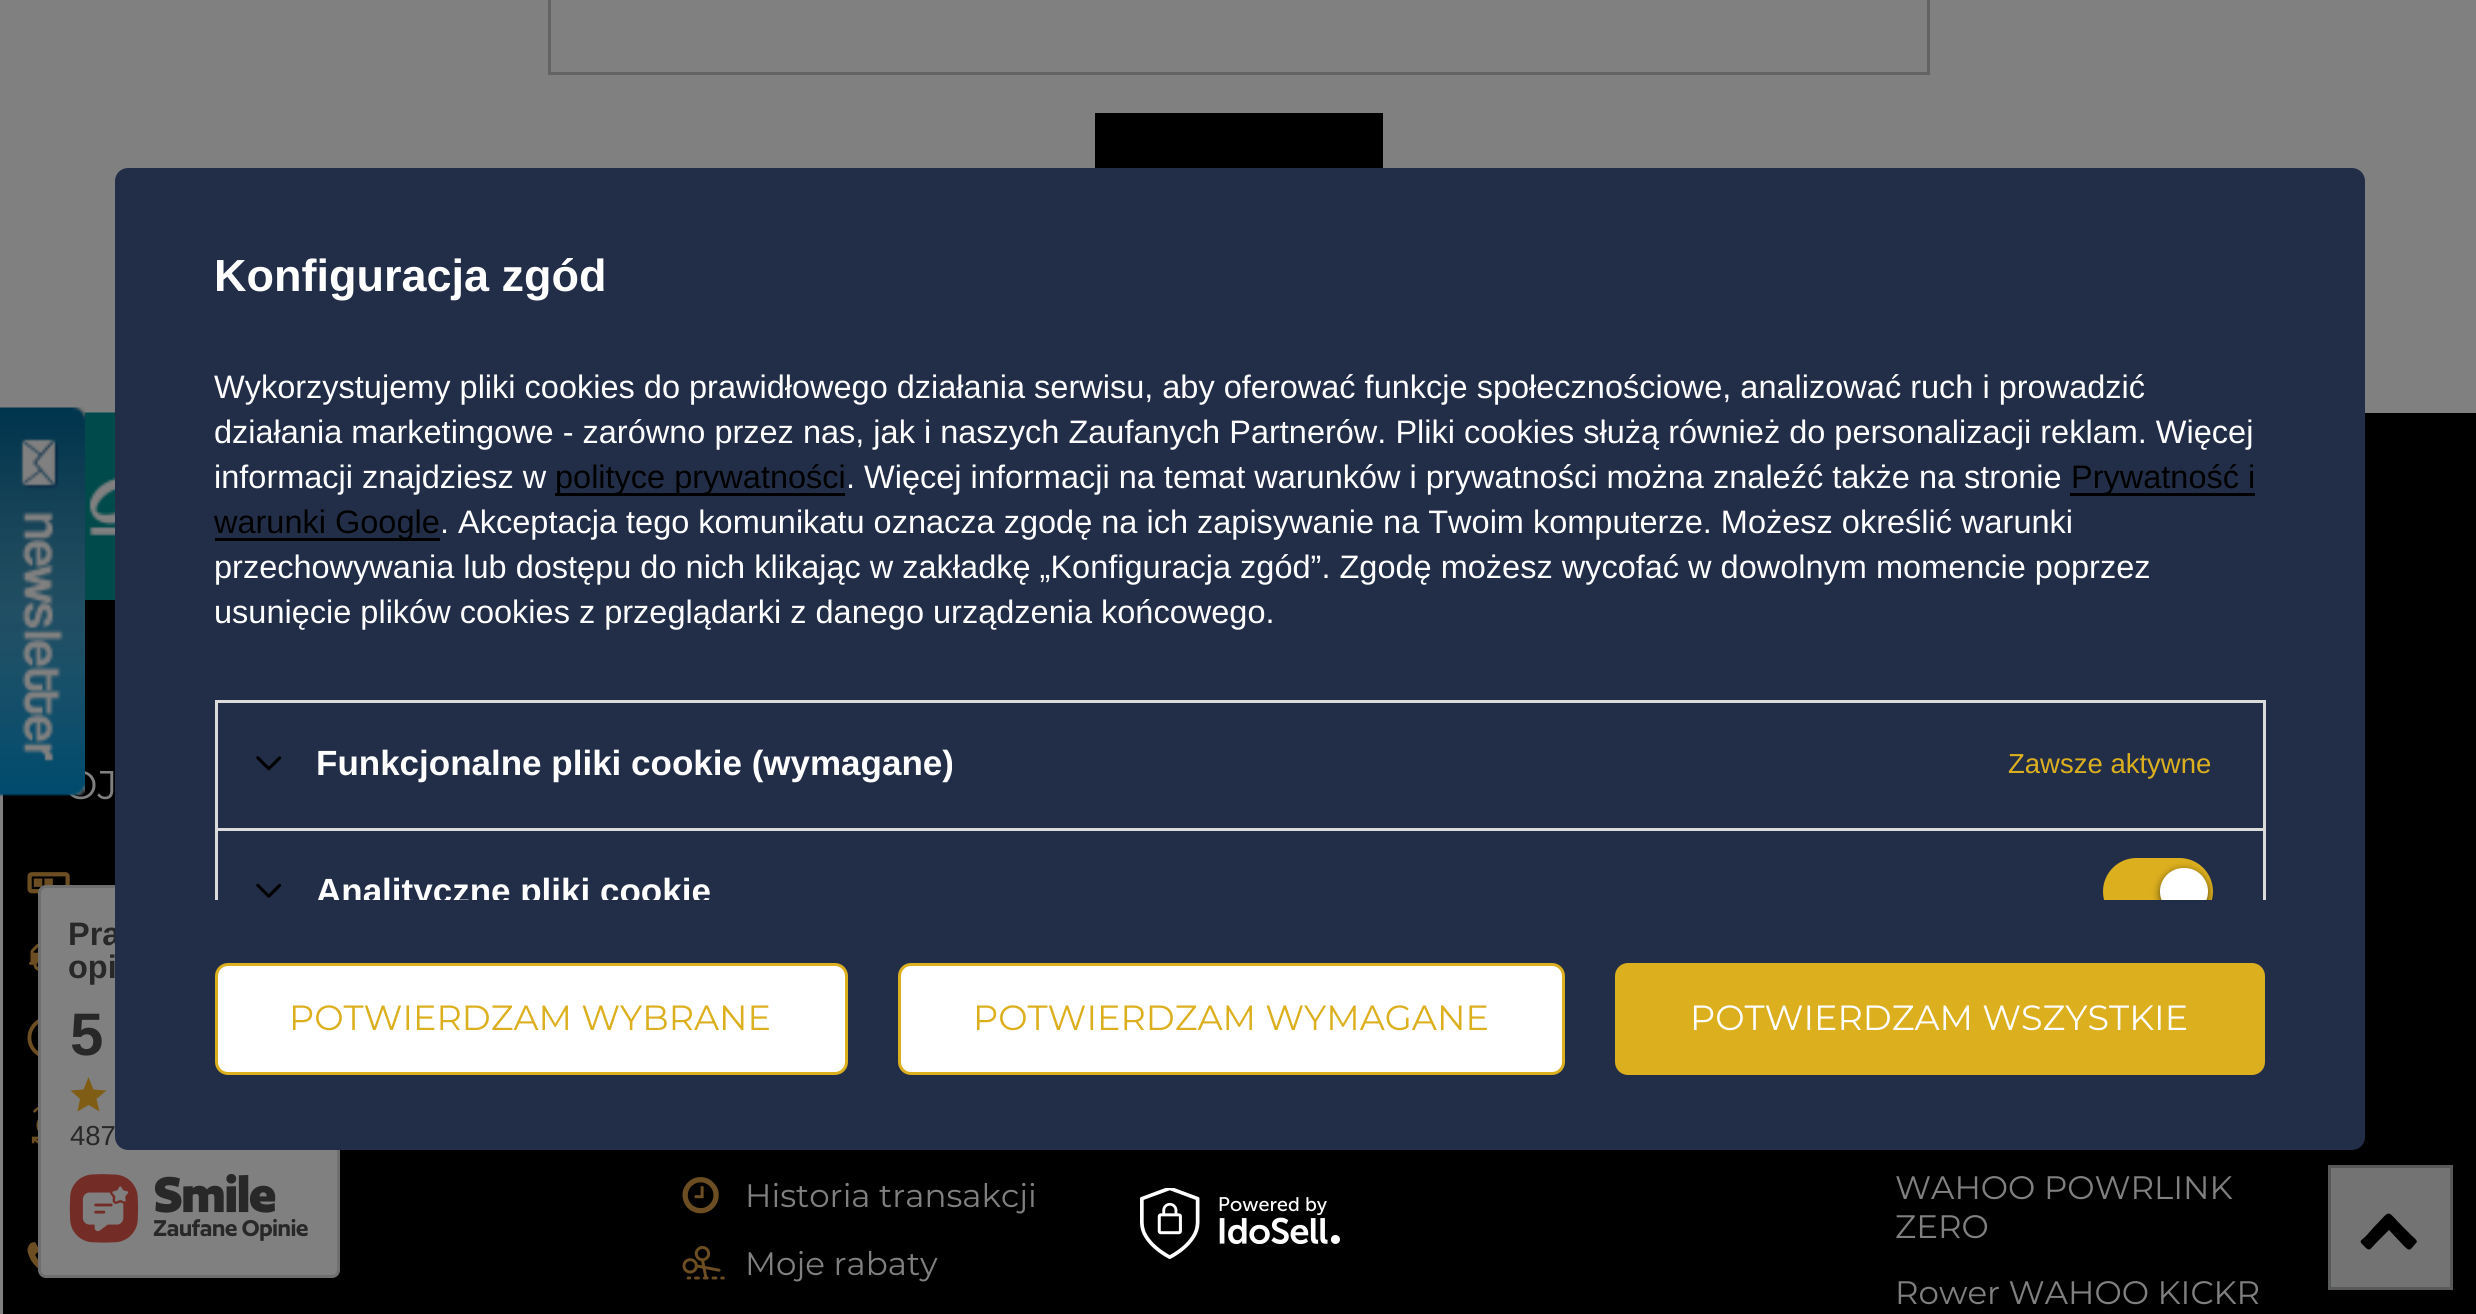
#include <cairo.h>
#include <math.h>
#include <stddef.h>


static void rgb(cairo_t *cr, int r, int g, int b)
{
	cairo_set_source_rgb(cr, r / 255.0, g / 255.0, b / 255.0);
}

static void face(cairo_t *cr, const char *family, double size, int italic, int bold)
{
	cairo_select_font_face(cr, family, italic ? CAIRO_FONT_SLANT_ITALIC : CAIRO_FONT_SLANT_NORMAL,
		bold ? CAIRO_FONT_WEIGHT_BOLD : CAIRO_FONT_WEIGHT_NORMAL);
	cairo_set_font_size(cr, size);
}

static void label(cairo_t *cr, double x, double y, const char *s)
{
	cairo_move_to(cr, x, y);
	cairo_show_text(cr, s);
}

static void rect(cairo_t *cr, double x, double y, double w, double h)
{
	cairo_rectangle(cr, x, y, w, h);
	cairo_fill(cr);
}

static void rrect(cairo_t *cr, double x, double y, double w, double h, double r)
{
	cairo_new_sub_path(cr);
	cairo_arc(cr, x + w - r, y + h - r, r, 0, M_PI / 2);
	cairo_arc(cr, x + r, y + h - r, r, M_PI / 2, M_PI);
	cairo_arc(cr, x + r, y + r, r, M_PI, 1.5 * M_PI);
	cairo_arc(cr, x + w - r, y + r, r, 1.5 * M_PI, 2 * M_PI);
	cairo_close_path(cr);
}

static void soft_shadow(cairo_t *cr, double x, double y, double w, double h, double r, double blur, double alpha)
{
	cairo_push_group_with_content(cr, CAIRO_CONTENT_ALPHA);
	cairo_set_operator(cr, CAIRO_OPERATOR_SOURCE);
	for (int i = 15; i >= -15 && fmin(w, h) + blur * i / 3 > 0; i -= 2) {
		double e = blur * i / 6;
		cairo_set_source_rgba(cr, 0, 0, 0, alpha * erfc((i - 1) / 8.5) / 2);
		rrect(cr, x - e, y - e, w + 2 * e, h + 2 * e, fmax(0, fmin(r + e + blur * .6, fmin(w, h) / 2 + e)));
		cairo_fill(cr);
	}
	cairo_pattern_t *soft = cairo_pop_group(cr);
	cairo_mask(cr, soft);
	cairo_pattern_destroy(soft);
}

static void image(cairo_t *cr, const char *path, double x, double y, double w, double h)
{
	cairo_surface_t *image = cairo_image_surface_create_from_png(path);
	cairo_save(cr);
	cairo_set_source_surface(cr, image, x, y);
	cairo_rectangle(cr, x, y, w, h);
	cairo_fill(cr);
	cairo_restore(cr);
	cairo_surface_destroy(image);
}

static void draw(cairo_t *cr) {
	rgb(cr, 128, 128, 128);
	cairo_paint(cr);
	cairo_rectangle(cr, 549.5, -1.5, 1379, 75);
	rgb(cr, 98, 100, 100);
	cairo_set_line_width(cr, 3);
	cairo_stroke(cr);
	rgb(cr, 0, 0, 0);
	rect(cr, 1095, 113, 288, 55);
	rect(cr, 3, 413, 2473, 901);
	image(cr, "image4.png", 81, 412, 34, 188);
	face(cr, "Montserrat", 40, 0, 0);
	rgb(cr, 128, 128, 128);
	label(cr, 64, 799, "OJ");
	image(cr, "image0.png", 0, 407, 85, 390);
	image(cr, "image5.png", 27, 872, 43, 22);
	rrect(cr, 39.5, 886.5, 299, 390, 6.5);
	cairo_fill_preserve(cr);
	rgb(cr, 111, 111, 111);
	cairo_stroke(cr);
	face(cr, "Liberation Sans", 32.5, 0, 1);
	rgb(cr, 40, 40, 40);
	label(cr, 68, 945, "Pra");
	rgb(cr, 34, 46, 72);
	rrect(cr, 115, 168, 2250, 982, 13);
	cairo_fill(cr);
	face(cr, "Liberation Sans", 45, 0, 1);
	rgb(cr, 255, 255, 255);
	label(cr, 214, 291, "Konfiguracja zgód");
	face(cr, "Liberation Sans", 32.5, 0, 0);
	label(cr, 214, 398, "Wykorzystujemy pliki cookies do prawidłowego działania serwisu, aby oferować funkcje społecznościowe, analizować ruch i prowadzić");
	label(cr, 214, 443, "działania marketingowe - zarówno przez nas, jak i naszych Zaufanych Partnerów. Pliki cookies służą również do personalizacji reklam. Więcej");
	label(cr, 214, 488, "informacji znajdziesz w");
	rgb(cr, 0, 0, 0);
	rect(cr, 555, 493, 290, 3);
	label(cr, 555, 488, "polityce prywatności");
	rgb(cr, 255, 255, 255);
	label(cr, 846, 488, ". Więcej informacji na temat warunków i prywatności można znaleźć także na stronie");
	rgb(cr, 0, 0, 0);
	rect(cr, 2070, 493, 185, 3);
	label(cr, 2071, 488, "Prywatność i");
	rect(cr, 215, 538, 225, 3);
	label(cr, 214, 533, "warunki Google");
	rgb(cr, 255, 255, 255);
	label(cr, 440, 533, ". Akceptacja tego komunikatu oznacza zgodę na ich zapisywanie na Twoim komputerze. Możesz określić warunki");
	label(cr, 214, 578, "przechowywania lub dostępu do nich klikając w zakładkę „Konfiguracja zgód”. Zgodę możesz wycofać w dowolnym momencie poprzez");
	label(cr, 214, 623, "usunięcie plików cookies z przeglądarki z danego urządzenia końcowego.");
	rgb(cr, 219, 219, 219);
	rect(cr, 215, 700, 2050, 3);
	rect(cr, 2263, 700, 3, 128);
	rect(cr, 215, 700, 3, 128);
	image(cr, "image1.png", 256, 756, 26, 15);
	face(cr, "Liberation Sans", 35, 0, 1);
	rgb(cr, 255, 255, 255);
	label(cr, 316, 775, "Funkcjonalne pliki cookie (wymagane)");
	face(cr, "Liberation Sans", 27.5, 0, 0);
	rgb(cr, 220, 175, 30);
	label(cr, 2008, 773, "Zawsze aktywne");
	rgb(cr, 219, 219, 219);
	rect(cr, 215, 828, 2050, 3);
	rect(cr, 2263, 828, 3, 72);
	rect(cr, 215, 828, 3, 72);
	image(cr, "image2.png", 256, 883, 26, 15);
	cairo_save(cr);
	cairo_rectangle(cr, 190, 243, 2100, 657);
	cairo_clip(cr);
	face(cr, "Liberation Sans", 35, 0, 1);
	rgb(cr, 255, 255, 255);
	label(cr, 316, 903, "Analityczne pliki cookie");
	rgb(cr, 220, 175, 30);
	rrect(cr, 2103, 858, 110, 67, 33.5);
	cairo_fill(cr);
	cairo_restore(cr);
	cairo_save(cr);
	cairo_rectangle(cr, 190, 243, 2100, 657);
	cairo_clip(cr);
	rgb(cr, 0, 0, 0);
	soft_shadow(cr, 2160, 870, 48, 48, 24, 4, 0.56);
	cairo_restore(cr);
	cairo_save(cr);
	cairo_rectangle(cr, 190, 243, 2100, 657);
	cairo_clip(cr);
	rgb(cr, 255, 255, 255);
	rrect(cr, 2160, 868, 48, 47, 23.5);
	cairo_fill(cr);
	cairo_restore(cr);
	rgb(cr, 255, 255, 255);
	rrect(cr, 216.5, 964.5, 630, 109, 11.5);
	cairo_fill_preserve(cr);
	rgb(cr, 220, 175, 30);
	cairo_stroke(cr);
	face(cr, "Montserrat", 35, 0, 0);
	label(cr, 289, 1030, "POTWIERDZAM WYBRANE");
	rgb(cr, 255, 255, 255);
	rrect(cr, 899.5, 964.5, 664, 109, 11.5);
	cairo_fill_preserve(cr);
	rgb(cr, 220, 175, 30);
	cairo_stroke(cr);
	label(cr, 973, 1030, "POTWIERDZAM WYMAGANE");
	rrect(cr, 1616.5, 964.5, 647, 109, 11.5);
	cairo_fill_preserve(cr);
	cairo_stroke(cr);
	rgb(cr, 255, 255, 255);
	label(cr, 1690, 1030, "POTWIERDZAM WSZYSTKIE");
	image(cr, "image3.png", 1140, 1188, 200, 71);
	image(cr, "image6.png", 29, 943, 9, 28);
	image(cr, "image7.png", 27, 1019, 11, 37);
	image(cr, "image8.png", 31, 1107, 7, 37);
	image(cr, "image9.png", 27, 1242, 11, 27);
	image(cr, "image10.png", 682, 1177, 37, 37);
	face(cr, "Montserrat", 32.5, 0, 0);
	rgb(cr, 128, 128, 128);
	label(cr, 745, 1207, "Historia transakcji");
	image(cr, "image11.png", 682, 1245, 43, 35);
	label(cr, 745, 1275, "Moje rabaty");
	label(cr, 1895, 1199, "WAHOO POWRLINK");
	label(cr, 1895, 1238, "ZERO");
	label(cr, 1895, 1304, "Rower WAHOO KICKR");
	face(cr, "Liberation Sans", 32.5, 0, 1);
	rgb(cr, 40, 40, 40);
	label(cr, 68, 978, "opi");
	face(cr, "Liberation Sans", 60, 0, 1);
	label(cr, 70, 1055, "5");
	rgb(cr, 128, 93, 20);
	cairo_new_path(cr);
	cairo_move_to(cr, 77.5, 1111.5);
	cairo_line_to(cr, 80, 1099);
	cairo_line_to(cr, 70.5, 1090.5);
	cairo_line_to(cr, 83.5, 1089.5);
	cairo_line_to(cr, 88.5, 1077);
	cairo_line_to(cr, 93.5, 1089.5);
	cairo_line_to(cr, 106.5, 1090.5);
	cairo_line_to(cr, 96.5, 1099);
	cairo_line_to(cr, 99.5, 1111.5);
	cairo_line_to(cr, 88.5, 1105);
	cairo_close_path(cr);
	cairo_fill(cr);
	face(cr, "Liberation Sans", 27.5, 0, 0);
	rgb(cr, 40, 40, 40);
	label(cr, 70, 1145, "487");
	image(cr, "image12.png", 69, 1174, 239, 69);
	rgb(cr, 115, 115, 115);
	cairo_rectangle(cr, 2329.5, 1166.5, 122, 122);
	cairo_fill_preserve(cr);
	rgb(cr, 88, 90, 90);
	cairo_stroke(cr);
	rgb(cr, 0, 0, 0);
	cairo_new_path(cr);
	cairo_move_to(cr, 2416, 1243);
	cairo_curve_to(cr, 2410, 1250, 2410, 1252, 2404, 1246);
	cairo_line_to(cr, 2389, 1230);
	cairo_line_to(cr, 2376, 1243);
	cairo_curve_to(cr, 2370, 1249, 2370, 1252, 2365, 1247);
	cairo_curve_to(cr, 2359, 1241, 2359, 1242, 2366, 1236);
	cairo_line_to(cr, 2374, 1227);
	cairo_curve_to(cr, 2392, 1209, 2385, 1209, 2403, 1227);
	cairo_line_to(cr, 2412, 1236);
	cairo_curve_to(cr, 2413, 1237, 2419, 1241, 2416, 1243);
	cairo_close_path(cr);
	cairo_fill(cr);
}

int main(void) {
	cairo_surface_t *surface = cairo_image_surface_create(CAIRO_FORMAT_RGB24, 2476, 1314);
	cairo_t *cr = cairo_create(surface);
	cairo_font_options_t *options = cairo_font_options_create();
	cairo_font_options_set_hint_metrics(options, CAIRO_HINT_METRICS_OFF);
	cairo_font_options_set_hint_style(options, CAIRO_HINT_STYLE_NONE);
	cairo_set_font_options(cr, options);
	cairo_set_miter_limit(cr, 4);
	draw(cr);
	cairo_surface_write_to_png(surface, "render.png");
	cairo_font_options_destroy(options);
	cairo_destroy(cr);
	cairo_surface_destroy(surface);
	return 0;
}
